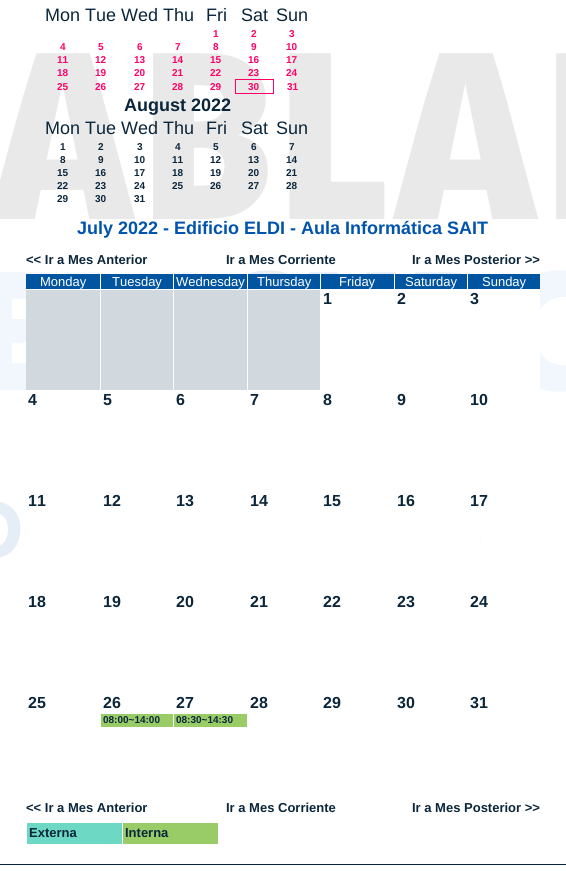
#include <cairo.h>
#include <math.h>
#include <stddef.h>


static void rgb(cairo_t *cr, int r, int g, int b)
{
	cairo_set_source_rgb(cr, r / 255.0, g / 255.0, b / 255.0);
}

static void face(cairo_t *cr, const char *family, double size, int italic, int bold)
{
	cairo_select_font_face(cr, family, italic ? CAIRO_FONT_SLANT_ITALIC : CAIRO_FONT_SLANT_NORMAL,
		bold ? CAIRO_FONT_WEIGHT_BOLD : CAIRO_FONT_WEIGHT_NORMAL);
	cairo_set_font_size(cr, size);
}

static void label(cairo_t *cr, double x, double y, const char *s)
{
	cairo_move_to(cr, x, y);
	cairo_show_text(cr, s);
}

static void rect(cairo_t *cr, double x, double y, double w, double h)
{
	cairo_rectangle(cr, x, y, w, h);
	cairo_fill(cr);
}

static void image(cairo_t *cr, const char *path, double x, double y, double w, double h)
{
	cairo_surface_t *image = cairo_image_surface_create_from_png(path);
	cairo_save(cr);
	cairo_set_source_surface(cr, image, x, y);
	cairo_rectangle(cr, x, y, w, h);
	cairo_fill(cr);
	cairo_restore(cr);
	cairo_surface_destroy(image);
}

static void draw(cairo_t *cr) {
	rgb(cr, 255, 255, 255);
	cairo_paint(cr);
	face(cr, "Liberation Sans", 18, 0, 0);
	rgb(cr, 11, 38, 59);
	label(cr, 45, 21, "Mon Tue");
	label(cr, 121, 21, "Wed");
	label(cr, 163, 21, "Thu");
	label(cr, 206, 21, "Fri");
	label(cr, 241, 21, "Sat");
	label(cr, 276, 21, "Sun");
	face(cr, "Liberation Sans", 10, 0, 1);
	rgb(cr, 255, 0, 102);
	label(cr, 213, 37, "1");
	label(cr, 251, 37, "2");
	label(cr, 289, 37, "3");
	label(cr, 60, 50, "4");
	label(cr, 98, 50, "5");
	label(cr, 137, 50, "6");
	label(cr, 175, 50, "7");
	label(cr, 213, 50, "8");
	label(cr, 251, 50, "9");
	label(cr, 286, 50, "10");
	image(cr, "image0.png", 0, 53, 566, 505);
	label(cr, 57, 63, "11");
	label(cr, 95, 63, "12");
	label(cr, 134, 63, "13");
	label(cr, 172, 63, "14");
	label(cr, 210, 63, "15");
	label(cr, 248, 63, "16");
	label(cr, 286, 63, "17");
	label(cr, 57, 76, "18");
	label(cr, 95, 76, "19");
	label(cr, 134, 76, "20");
	label(cr, 172, 76, "21");
	label(cr, 210, 76, "22");
	label(cr, 248, 76, "23");
	label(cr, 286, 76, "24");
	label(cr, 57, 90, "25");
	label(cr, 95, 90, "26");
	label(cr, 134, 90, "27");
	label(cr, 172, 90, "28");
	label(cr, 210, 90, "29");
	rect(cr, 235, 79, 39, 1);
	rect(cr, 273, 79, 1, 15);
	rect(cr, 235, 93, 39, 1);
	rect(cr, 235, 79, 1, 15);
	label(cr, 248, 90, "30");
	label(cr, 287, 90, "31");
	face(cr, "Liberation Sans", 18, 0, 1);
	rgb(cr, 11, 38, 59);
	label(cr, 124, 111, "August 2022");
	face(cr, "Liberation Sans", 18, 0, 0);
	label(cr, 45, 134, "Mon Tue");
	label(cr, 121, 134, "Wed");
	label(cr, 163, 134, "Thu");
	label(cr, 206, 134, "Fri");
	label(cr, 241, 134, "Sat");
	label(cr, 276, 134, "Sun");
	face(cr, "Liberation Sans", 10, 0, 1);
	label(cr, 60, 150, "1");
	label(cr, 98, 150, "2");
	label(cr, 137, 150, "3");
	label(cr, 175, 150, "4");
	label(cr, 213, 150, "5");
	label(cr, 251, 150, "6");
	label(cr, 289, 150, "7");
	label(cr, 60, 163, "8");
	label(cr, 98, 163, "9");
	label(cr, 134, 163, "10");
	label(cr, 172, 163, "11");
	label(cr, 210, 163, "12");
	label(cr, 248, 163, "13");
	label(cr, 286, 163, "14");
	label(cr, 57, 176, "15");
	label(cr, 95, 176, "16");
	label(cr, 134, 176, "17");
	label(cr, 172, 176, "18");
	label(cr, 210, 176, "19");
	label(cr, 248, 176, "20");
	label(cr, 286, 176, "21");
	label(cr, 57, 189, "22");
	label(cr, 95, 189, "23");
	label(cr, 134, 189, "24");
	label(cr, 172, 189, "25");
	label(cr, 210, 189, "26");
	label(cr, 248, 189, "27");
	label(cr, 286, 189, "28");
	label(cr, 57, 202, "29");
	label(cr, 95, 202, "30");
	label(cr, 134, 202, "31");
	face(cr, "Liberation Sans", 18, 0, 1);
	rgb(cr, 0, 84, 173);
	label(cr, 77, 234, "July 2022 - Edificio ELDI - Aula Informática SAIT");
	face(cr, "Liberation Sans", 13, 0, 1);
	rgb(cr, 11, 38, 59);
	label(cr, 26, 264, "<< Ir a Mes Anterior");
	label(cr, 226, 264, "Ir a Mes Corriente");
	label(cr, 412, 264, "Ir a Mes Posterior >>");
	rgb(cr, 0, 84, 160);
	rect(cr, 26, 274, 74, 15);
	face(cr, "Liberation Sans", 13, 0, 0);
	rgb(cr, 255, 255, 255);
	label(cr, 40, 286, "Monday");
	rgb(cr, 0, 84, 160);
	rect(cr, 101, 274, 72, 15);
	rgb(cr, 255, 255, 255);
	rect(cr, 100, 274, 1, 15);
	label(cr, 112, 286, "Tuesday");
	rgb(cr, 0, 84, 160);
	rect(cr, 174, 274, 73, 15);
	rgb(cr, 255, 255, 255);
	rect(cr, 173, 274, 1, 15);
	label(cr, 176, 286, "Wednesday");
	rgb(cr, 0, 84, 160);
	rect(cr, 248, 274, 72, 15);
	rgb(cr, 255, 255, 255);
	rect(cr, 247, 274, 1, 15);
	label(cr, 257, 286, "Thursday");
	rgb(cr, 0, 84, 160);
	rect(cr, 321, 274, 73, 15);
	rgb(cr, 255, 255, 255);
	rect(cr, 320, 274, 1, 15);
	label(cr, 339, 286, "Friday");
	rgb(cr, 0, 84, 160);
	rect(cr, 395, 274, 72, 15);
	rgb(cr, 255, 255, 255);
	rect(cr, 394, 274, 1, 15);
	label(cr, 405, 286, "Saturday");
	rgb(cr, 0, 84, 160);
	rect(cr, 468, 274, 72, 15);
	rgb(cr, 255, 255, 255);
	rect(cr, 467, 274, 1, 15);
	label(cr, 482, 286, "Sunday");
	rgb(cr, 209, 217, 222);
	rect(cr, 26, 290, 74, 100);
	rgb(cr, 255, 255, 255);
	rect(cr, 26, 289, 294, 1);
	rgb(cr, 209, 217, 222);
	rect(cr, 101, 290, 72, 100);
	rgb(cr, 255, 255, 255);
	rect(cr, 100, 289, 1, 101);
	rgb(cr, 209, 217, 222);
	rect(cr, 174, 290, 73, 100);
	rgb(cr, 255, 255, 255);
	rect(cr, 173, 289, 1, 101);
	rgb(cr, 209, 217, 222);
	rect(cr, 248, 290, 72, 100);
	rgb(cr, 255, 255, 255);
	rect(cr, 247, 289, 1, 101);
	rect(cr, 320, 289, 147, 101);
	face(cr, "Liberation Sans", 16, 0, 1);
	rgb(cr, 11, 38, 59);
	label(cr, 323, 304, "1");
	label(cr, 397, 304, "2");
	rgb(cr, 255, 255, 255);
	rect(cr, 467, 289, 73, 100);
	rgb(cr, 11, 38, 59);
	label(cr, 470, 304, "3");
	label(cr, 28, 405, "4");
	label(cr, 103, 405, "5");
	label(cr, 176, 405, "6");
	rgb(cr, 255, 255, 255);
	rect(cr, 254, 390, 30, 2);
	rgb(cr, 11, 38, 59);
	label(cr, 250, 405, "7");
	rgb(cr, 255, 255, 255);
	rect(cr, 338, 390, 28, 2);
	rgb(cr, 11, 38, 59);
	label(cr, 323, 405, "8");
	label(cr, 397, 405, "9");
	label(cr, 470, 405, "10");
	rgb(cr, 255, 255, 255);
	rect(cr, 29, 528, 59, 30);
	rgb(cr, 11, 38, 59);
	label(cr, 28, 506, "11");
	rgb(cr, 255, 255, 255);
	rect(cr, 101, 500, 72, 58);
	rgb(cr, 11, 38, 59);
	label(cr, 103, 506, "12");
	rgb(cr, 255, 255, 255);
	rect(cr, 173, 499, 136, 59);
	rgb(cr, 11, 38, 59);
	label(cr, 176, 506, "13");
	label(cr, 250, 506, "14");
	rgb(cr, 255, 255, 255);
	rect(cr, 323, 507, 71, 51);
	rgb(cr, 11, 38, 59);
	label(cr, 323, 506, "15");
	rgb(cr, 255, 255, 255);
	rect(cr, 394, 505, 71, 53);
	rgb(cr, 11, 38, 59);
	label(cr, 397, 506, "16");
	rgb(cr, 255, 255, 255);
	rect(cr, 481, 529, 46, 29);
	rgb(cr, 11, 38, 59);
	label(cr, 470, 506, "17");
	label(cr, 28, 607, "18");
	label(cr, 103, 607, "19");
	label(cr, 176, 607, "20");
	label(cr, 250, 607, "21");
	label(cr, 323, 607, "22");
	label(cr, 397, 607, "23");
	label(cr, 470, 607, "24");
	label(cr, 28, 708, "25");
	label(cr, 103, 708, "26");
	rgb(cr, 153, 204, 102);
	rect(cr, 101, 714, 72, 13);
	face(cr, "Liberation Sans", 10, 0, 1);
	rgb(cr, 11, 38, 59);
	label(cr, 103, 723, "08:00~14:00");
	face(cr, "Liberation Sans", 16, 0, 1);
	label(cr, 176, 708, "27");
	rgb(cr, 153, 204, 102);
	rect(cr, 174, 714, 73, 13);
	face(cr, "Liberation Sans", 10, 0, 1);
	rgb(cr, 11, 38, 59);
	label(cr, 176, 723, "08:30~14:30");
	face(cr, "Liberation Sans", 16, 0, 1);
	label(cr, 250, 708, "28");
	label(cr, 323, 708, "29");
	label(cr, 397, 708, "30");
	label(cr, 470, 708, "31");
	face(cr, "Liberation Sans", 13, 0, 1);
	label(cr, 26, 812, "<< Ir a Mes Anterior");
	label(cr, 226, 812, "Ir a Mes Corriente");
	label(cr, 412, 812, "Ir a Mes Posterior >>");
	rgb(cr, 109, 217, 196);
	rect(cr, 27, 823, 95, 21);
	rgb(cr, 11, 38, 59);
	label(cr, 29, 837, "Externa");
	rgb(cr, 153, 204, 102);
	rect(cr, 123, 823, 95, 21);
	rgb(cr, 11, 38, 59);
	label(cr, 125, 837, "Interna");
	rect(cr, 0, 864, 566, 1);
}

int main(void) {
	cairo_surface_t *surface = cairo_image_surface_create(CAIRO_FORMAT_RGB24, 566, 871);
	cairo_t *cr = cairo_create(surface);
	cairo_font_options_t *options = cairo_font_options_create();
	cairo_font_options_set_hint_metrics(options, CAIRO_HINT_METRICS_OFF);
	cairo_font_options_set_hint_style(options, CAIRO_HINT_STYLE_NONE);
	cairo_set_font_options(cr, options);
	cairo_set_miter_limit(cr, 4);
	draw(cr);
	cairo_surface_write_to_png(surface, "render.png");
	cairo_font_options_destroy(options);
	cairo_destroy(cr);
	cairo_surface_destroy(surface);
	return 0;
}
